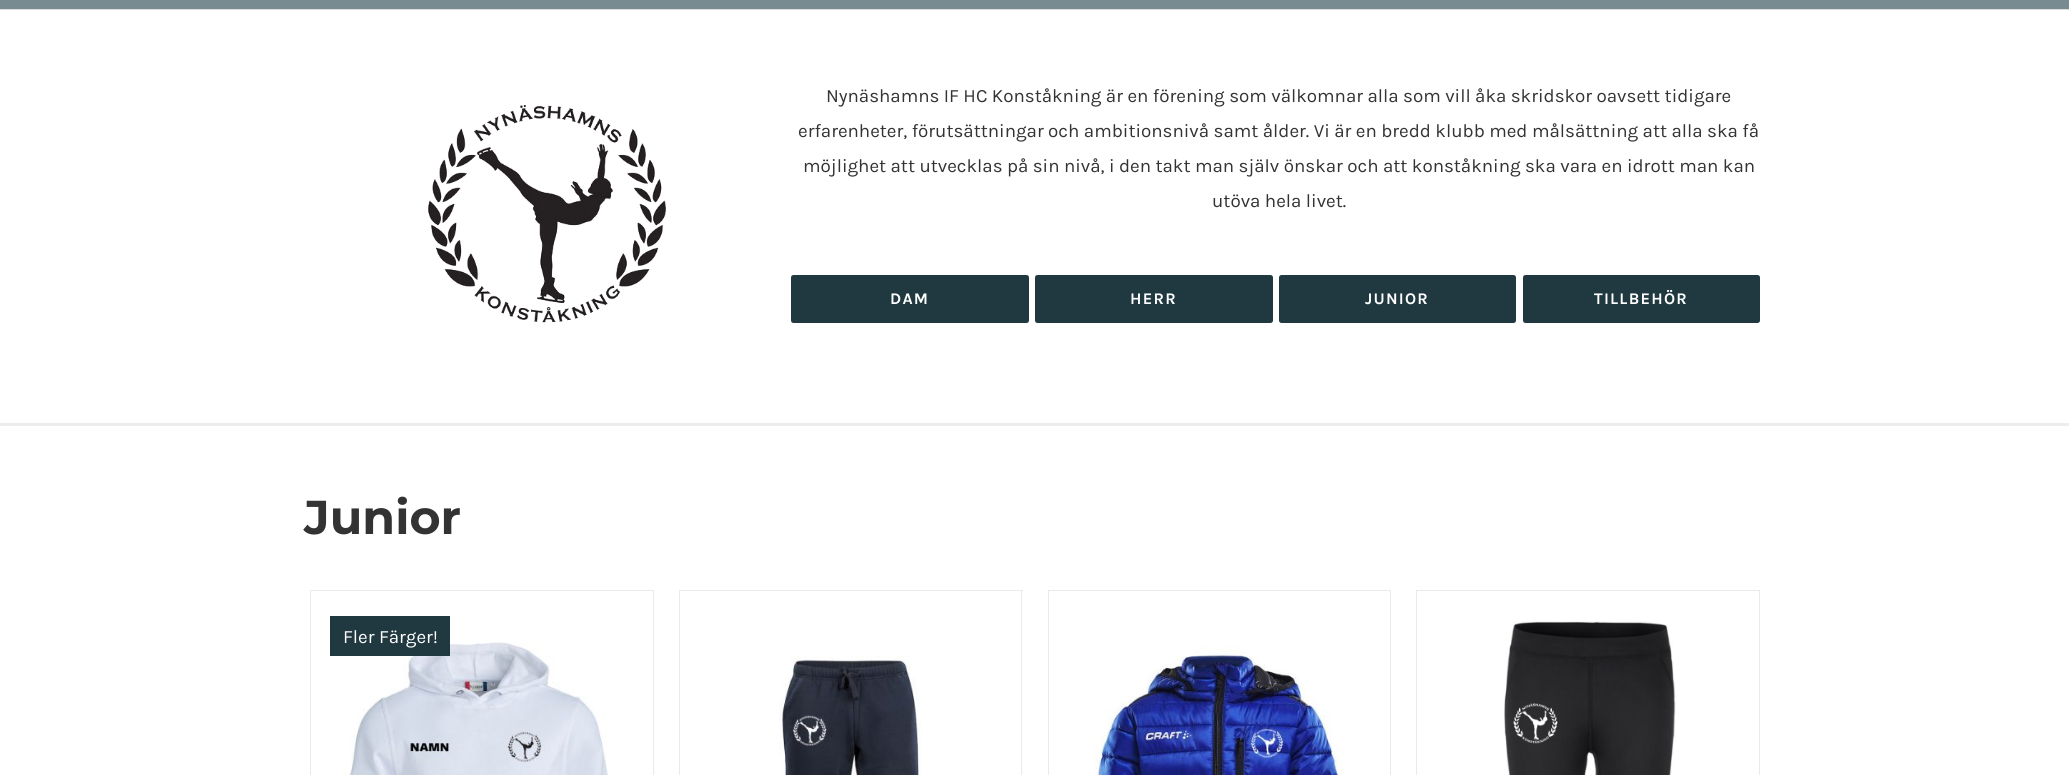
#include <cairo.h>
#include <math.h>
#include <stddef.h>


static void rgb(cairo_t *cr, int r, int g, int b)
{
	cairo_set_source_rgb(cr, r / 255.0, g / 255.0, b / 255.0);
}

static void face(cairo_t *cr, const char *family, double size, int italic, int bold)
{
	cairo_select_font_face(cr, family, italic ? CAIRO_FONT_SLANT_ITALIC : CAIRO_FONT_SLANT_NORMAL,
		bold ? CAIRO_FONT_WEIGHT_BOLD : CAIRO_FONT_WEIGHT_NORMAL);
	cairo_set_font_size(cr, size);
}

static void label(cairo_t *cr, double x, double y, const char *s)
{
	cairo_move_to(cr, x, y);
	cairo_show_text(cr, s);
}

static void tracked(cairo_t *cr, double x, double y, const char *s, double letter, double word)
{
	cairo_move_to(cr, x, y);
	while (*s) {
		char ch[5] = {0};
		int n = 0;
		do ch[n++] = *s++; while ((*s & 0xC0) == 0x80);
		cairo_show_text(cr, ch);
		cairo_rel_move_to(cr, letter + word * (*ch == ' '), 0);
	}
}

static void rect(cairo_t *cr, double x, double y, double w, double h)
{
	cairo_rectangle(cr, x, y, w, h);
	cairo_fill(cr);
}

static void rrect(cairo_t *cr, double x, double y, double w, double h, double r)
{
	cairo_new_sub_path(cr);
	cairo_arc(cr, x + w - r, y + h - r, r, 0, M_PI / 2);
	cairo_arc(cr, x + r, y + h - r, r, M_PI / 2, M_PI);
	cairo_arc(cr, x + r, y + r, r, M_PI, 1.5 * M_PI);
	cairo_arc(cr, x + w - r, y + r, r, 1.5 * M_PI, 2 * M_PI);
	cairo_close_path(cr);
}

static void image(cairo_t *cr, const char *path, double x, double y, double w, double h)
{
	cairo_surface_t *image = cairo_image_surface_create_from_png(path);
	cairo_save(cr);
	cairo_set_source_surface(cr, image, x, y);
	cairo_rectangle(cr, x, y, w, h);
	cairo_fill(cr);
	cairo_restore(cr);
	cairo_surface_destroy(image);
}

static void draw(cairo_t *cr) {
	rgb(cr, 255, 255, 255);
	cairo_paint(cr);
	rgb(cr, 120, 139, 145);
	rect(cr, 0, 0, 2069, 9);
	rgb(cr, 221, 221, 221);
	rect(cr, 0, 9, 2069, 1);
	rgb(cr, 237, 237, 237);
	rect(cr, 0, 423, 2069, 3);
	image(cr, "image0.png", 428, 105, 238, 218);
	face(cr, "Karla", 18.75, 0, 0);
	rgb(cr, 51, 51, 51);
	label(cr, 826, 102, "Nynäshamns IF HC Konståkning är en förening som välkomnar alla som vill åka skridskor oavsett tidigare");
	label(cr, 798, 137, "erfarenheter, förutsättningar och ambitionsnivå samt ålder. Vi är en bredd klubb med målsättning att alla ska få");
	label(cr, 803, 172, "möjlighet att utvecklas på sin nivå, i den takt man själv önskar och att konståkning ska vara en idrott man kan");
	label(cr, 1212, 207, "utöva hela livet.");
	rgb(cr, 32, 57, 64);
	rrect(cr, 791, 275, 238, 48, 2.5);
	cairo_fill(cr);
	face(cr, "Karla", 16.25, 0, 1);
	rgb(cr, 255, 255, 255);
	tracked(cr, 890, 304, "DAM", 1.25, 0);
	rgb(cr, 32, 57, 64);
	rrect(cr, 1035, 275, 238, 48, 2.5);
	cairo_fill(cr);
	rgb(cr, 255, 255, 255);
	tracked(cr, 1130, 304, "HERR", 1.25, 0);
	rgb(cr, 32, 57, 64);
	rrect(cr, 1279, 275, 237, 48, 2.5);
	cairo_fill(cr);
	rgb(cr, 255, 255, 255);
	tracked(cr, 1365, 304, "JUNIOR", 1.25, 0);
	rgb(cr, 32, 57, 64);
	rrect(cr, 1523, 275, 237, 48, 2.5);
	cairo_fill(cr);
	rgb(cr, 255, 255, 255);
	tracked(cr, 1594, 304, "TILLBEHÖR", 1.25, 0);
	face(cr, "Montserrat Thin", 47.5, 0, 0);
	rgb(cr, 51, 51, 51);
	label(cr, 304, 534, "Junior");
	rgb(cr, 235, 234, 234);
	rect(cr, 310, 590, 344, 1);
	rect(cr, 653, 590, 1, 185);
	rect(cr, 310, 590, 1, 185);
	image(cr, "image1.png", 344, 642, 265, 133);
	rgb(cr, 32, 57, 64);
	rect(cr, 330, 616, 120, 40);
	face(cr, "Karla", 18.75, 0, 0);
	rgb(cr, 255, 255, 255);
	label(cr, 343, 643, "Fler Färger!");
	rgb(cr, 235, 234, 234);
	rect(cr, 679, 590, 344, 1);
	rect(cr, 1021, 590, 1, 185);
	rect(cr, 679, 590, 1, 185);
	image(cr, "image2.png", 779, 656, 143, 119);
	rect(cr, 1048, 590, 343, 1);
	rect(cr, 1390, 590, 1, 185);
	rect(cr, 1048, 590, 1, 185);
	image(cr, "image3.png", 1094, 644, 251, 131);
	rect(cr, 1416, 590, 344, 1);
	rect(cr, 1759, 590, 1, 185);
	rect(cr, 1416, 590, 1, 185);
	image(cr, "image4.png", 1504, 621, 172, 154);
}

int main(void) {
	cairo_surface_t *surface = cairo_image_surface_create(CAIRO_FORMAT_RGB24, 2069, 775);
	cairo_t *cr = cairo_create(surface);
	cairo_font_options_t *options = cairo_font_options_create();
	cairo_font_options_set_hint_metrics(options, CAIRO_HINT_METRICS_OFF);
	cairo_font_options_set_hint_style(options, CAIRO_HINT_STYLE_NONE);
	cairo_set_font_options(cr, options);
	cairo_set_miter_limit(cr, 4);
	draw(cr);
	cairo_surface_write_to_png(surface, "render.png");
	cairo_font_options_destroy(options);
	cairo_destroy(cr);
	cairo_surface_destroy(surface);
	return 0;
}
